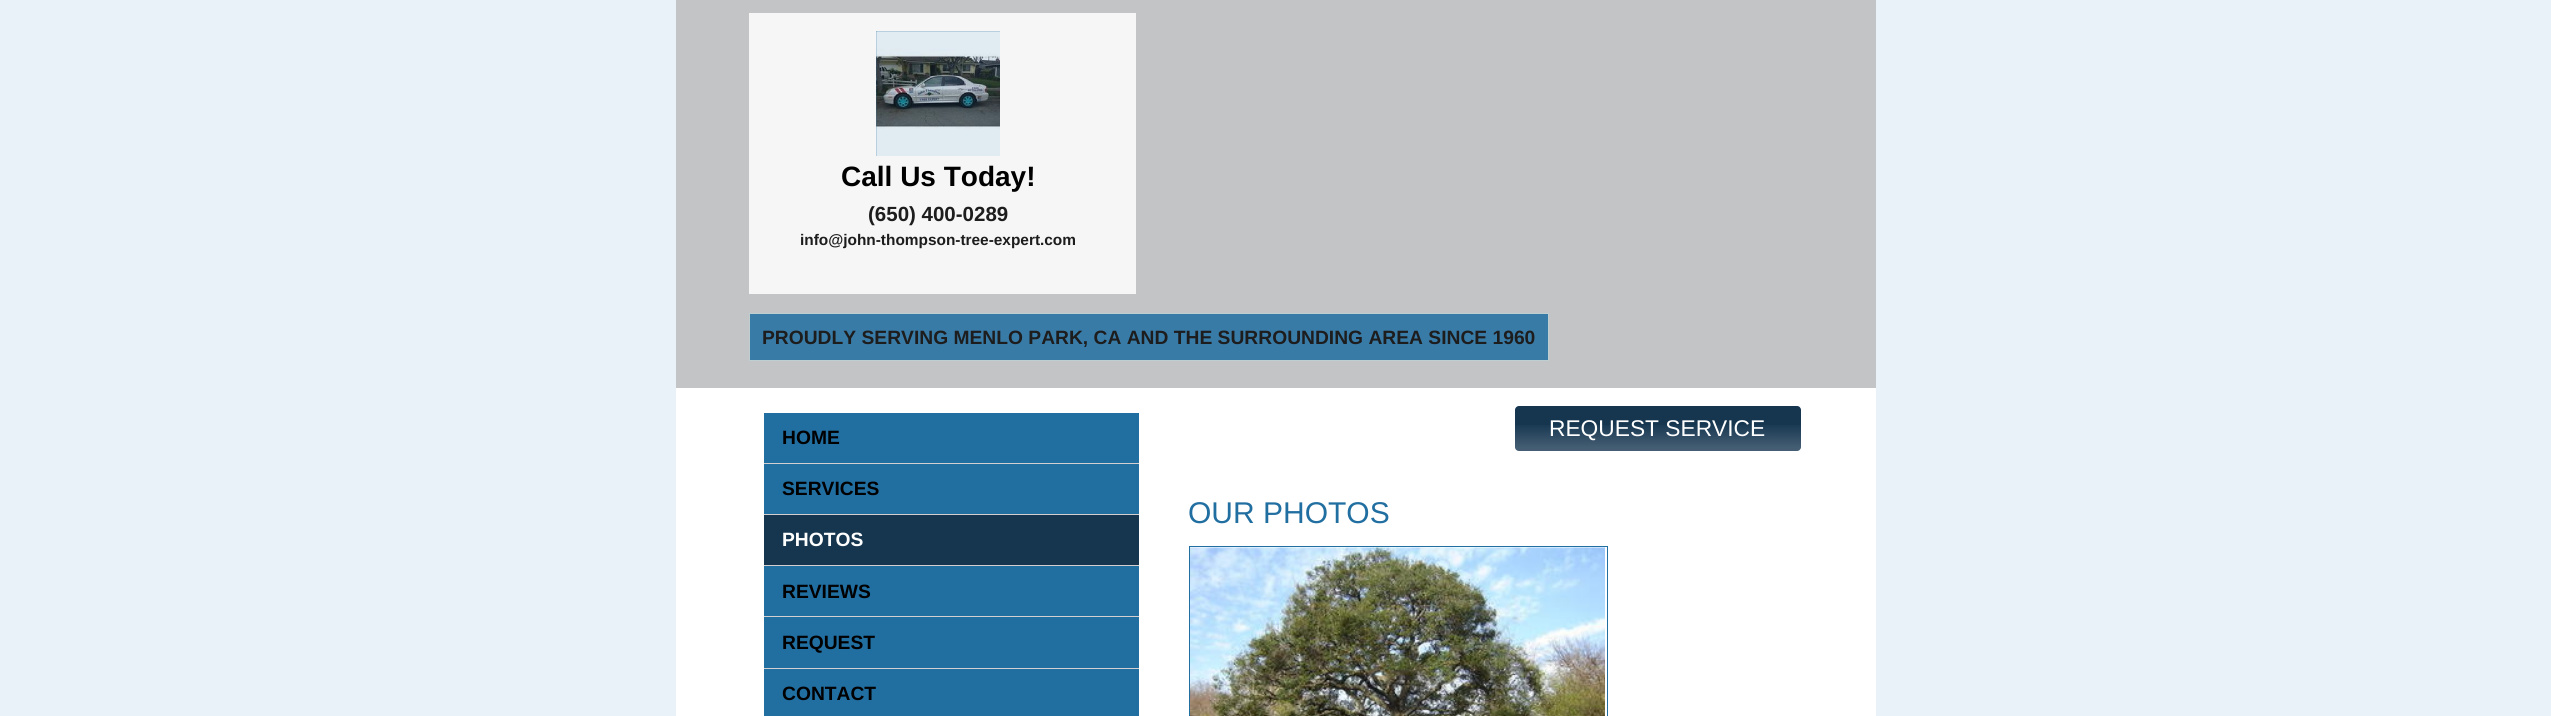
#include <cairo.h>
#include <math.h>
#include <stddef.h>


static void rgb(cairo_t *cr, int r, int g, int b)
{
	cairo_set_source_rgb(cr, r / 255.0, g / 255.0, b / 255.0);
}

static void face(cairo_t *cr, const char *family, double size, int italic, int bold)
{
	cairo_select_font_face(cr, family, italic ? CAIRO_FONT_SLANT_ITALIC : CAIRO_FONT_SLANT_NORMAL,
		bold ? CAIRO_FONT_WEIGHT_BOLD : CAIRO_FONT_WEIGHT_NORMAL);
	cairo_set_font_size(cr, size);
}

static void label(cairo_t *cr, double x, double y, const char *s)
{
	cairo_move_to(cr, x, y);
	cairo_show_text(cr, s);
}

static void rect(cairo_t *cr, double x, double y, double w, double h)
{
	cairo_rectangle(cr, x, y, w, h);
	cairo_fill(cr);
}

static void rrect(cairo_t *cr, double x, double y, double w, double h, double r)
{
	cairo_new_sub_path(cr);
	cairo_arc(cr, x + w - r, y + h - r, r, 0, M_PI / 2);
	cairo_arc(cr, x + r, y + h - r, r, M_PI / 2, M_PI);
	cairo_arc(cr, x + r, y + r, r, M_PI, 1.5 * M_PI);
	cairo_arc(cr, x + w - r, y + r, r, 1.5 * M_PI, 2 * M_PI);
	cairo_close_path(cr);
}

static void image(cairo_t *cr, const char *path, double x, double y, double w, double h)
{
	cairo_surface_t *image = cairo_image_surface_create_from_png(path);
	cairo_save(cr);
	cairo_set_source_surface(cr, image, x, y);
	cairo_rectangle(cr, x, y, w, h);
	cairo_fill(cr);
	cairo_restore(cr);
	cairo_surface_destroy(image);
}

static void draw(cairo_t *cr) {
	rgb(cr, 233, 242, 249);
	cairo_paint(cr);
	rgb(cr, 255, 255, 255);
	rect(cr, 676, 388, 1200, 328);
	rgb(cr, 195, 196, 198);
	rect(cr, 676, 0, 1200, 388);
	rgb(cr, 246, 246, 246);
	rect(cr, 749, 13, 387, 281);
	rgb(cr, 57, 123, 167);
	rect(cr, 876, 31, 124, 125);
	image(cr, "image0.png", 876, 31, 124, 125);
	face(cr, "Liberation Sans", 28, 0, 1);
	rgb(cr, 0, 0, 0);
	label(cr, 841, 186, "Call Us Today!");
	face(cr, "Liberation Sans", 20.5, 0, 1);
	rgb(cr, 29, 29, 30);
	label(cr, 868, 221, "(650) 400-0289");
	face(cr, "Liberation Sans", 15.4, 0, 1);
	label(cr, 800, 245, "info@john-thompson-tree-expert.com");
	rgb(cr, 57, 123, 167);
	cairo_rectangle(cr, 749.5, 313.5, 799, 47);
	cairo_fill_preserve(cr);
	rgb(cr, 190, 206, 209);
	cairo_set_line_width(cr, 1);
	cairo_stroke(cr);
	face(cr, "Liberation Sans", 19.25, 0, 1);
	rgb(cr, 29, 29, 30);
	label(cr, 762, 344, "PROUDLY SERVING MENLO PARK, CA AND THE SURROUNDING AREA SINCE 1960");
	rgb(cr, 22, 54, 80);
	rrect(cr, 1515, 406, 286, 45, 4);
	cairo_fill(cr);
	image(cr, "image1.png", 1515, 425, 286, 26);
	face(cr, "Liberation Sans", 22.75, 0, 0);
	rgb(cr, 255, 255, 255);
	label(cr, 1549, 436, "REQUEST SERVICE");
	rgb(cr, 33, 110, 161);
	rect(cr, 764, 413, 375, 303);
	face(cr, "Liberation Sans", 19.25, 0, 1);
	rgb(cr, 0, 0, 0);
	label(cr, 782, 444, "HOME");
	rgb(cr, 212, 208, 209);
	rect(cr, 764, 463, 375, 1);
	rgb(cr, 0, 0, 0);
	label(cr, 782, 495, "SERVICES");
	rgb(cr, 22, 54, 80);
	rect(cr, 764, 515, 375, 50);
	rgb(cr, 212, 208, 209);
	rect(cr, 764, 514, 375, 1);
	rgb(cr, 255, 255, 255);
	label(cr, 782, 546, "PHOTOS");
	rgb(cr, 212, 208, 209);
	rect(cr, 764, 565, 375, 1);
	rgb(cr, 0, 0, 0);
	label(cr, 782, 598, "REVIEWS");
	rgb(cr, 212, 208, 209);
	rect(cr, 764, 616, 375, 1);
	rgb(cr, 0, 0, 0);
	label(cr, 782, 649, "REQUEST");
	rgb(cr, 212, 208, 209);
	rect(cr, 764, 668, 375, 1);
	rgb(cr, 0, 0, 0);
	label(cr, 782, 700, "CONTACT");
	face(cr, "Liberation Sans", 30, 0, 0);
	rgb(cr, 33, 110, 161);
	label(cr, 1188, 523, "OUR PHOTOS");
	image(cr, "image2.png", 1190, 547, 415, 169);
	cairo_rectangle(cr, 1189.5, 546.5, 418, 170);
	cairo_stroke(cr);
}

int main(void) {
	cairo_surface_t *surface = cairo_image_surface_create(CAIRO_FORMAT_RGB24, 2551, 716);
	cairo_t *cr = cairo_create(surface);
	cairo_font_options_t *options = cairo_font_options_create();
	cairo_font_options_set_hint_metrics(options, CAIRO_HINT_METRICS_OFF);
	cairo_font_options_set_hint_style(options, CAIRO_HINT_STYLE_NONE);
	cairo_set_font_options(cr, options);
	cairo_set_miter_limit(cr, 4);
	draw(cr);
	cairo_surface_write_to_png(surface, "render.png");
	cairo_font_options_destroy(options);
	cairo_destroy(cr);
	cairo_surface_destroy(surface);
	return 0;
}
